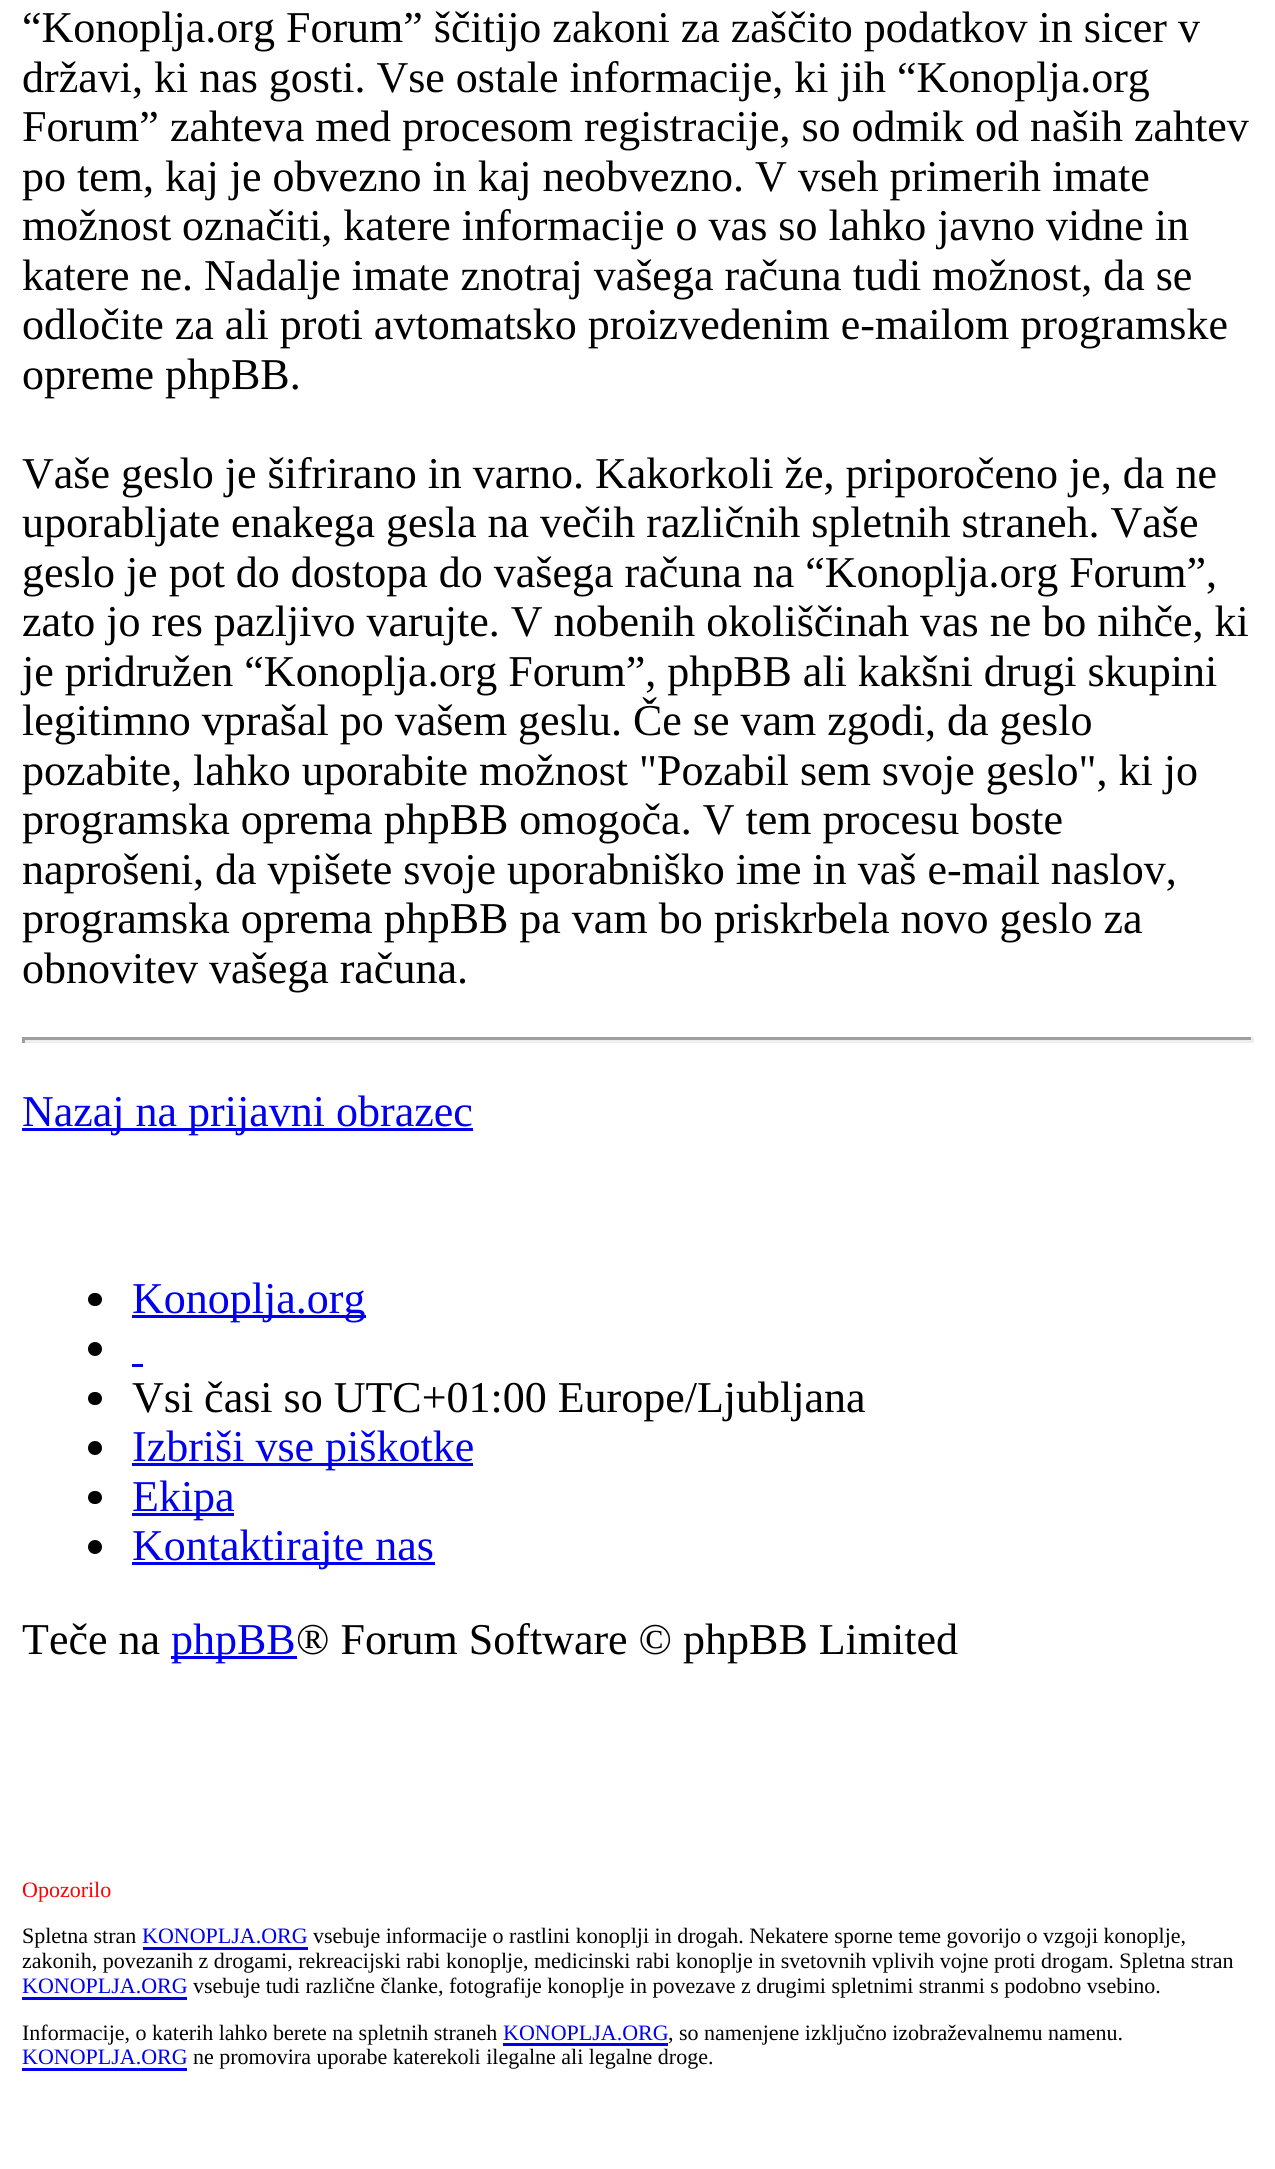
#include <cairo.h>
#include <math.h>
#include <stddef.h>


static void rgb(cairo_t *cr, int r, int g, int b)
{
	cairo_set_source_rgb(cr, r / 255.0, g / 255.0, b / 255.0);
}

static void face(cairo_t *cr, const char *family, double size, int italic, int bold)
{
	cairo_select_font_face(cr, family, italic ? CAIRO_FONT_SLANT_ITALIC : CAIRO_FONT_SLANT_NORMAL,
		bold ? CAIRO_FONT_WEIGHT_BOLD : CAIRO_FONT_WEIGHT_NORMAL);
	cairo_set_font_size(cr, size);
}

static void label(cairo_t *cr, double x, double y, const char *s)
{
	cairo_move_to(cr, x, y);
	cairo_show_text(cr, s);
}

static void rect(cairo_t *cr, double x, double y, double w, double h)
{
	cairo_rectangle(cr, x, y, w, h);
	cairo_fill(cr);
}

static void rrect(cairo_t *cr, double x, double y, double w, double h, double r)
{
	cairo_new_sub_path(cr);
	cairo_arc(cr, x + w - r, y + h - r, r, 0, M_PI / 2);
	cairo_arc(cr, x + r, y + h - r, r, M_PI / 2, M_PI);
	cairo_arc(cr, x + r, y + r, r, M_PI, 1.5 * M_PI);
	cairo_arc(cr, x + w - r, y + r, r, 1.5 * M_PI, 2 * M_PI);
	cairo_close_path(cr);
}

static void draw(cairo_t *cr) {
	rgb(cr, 255, 255, 255);
	cairo_paint(cr);
	face(cr, "Liberation Serif", 44, 0, 0);
	rgb(cr, 0, 0, 0);
	label(cr, 22, 42, "“Konoplja.org Forum” ščitijo zakoni za zaščito podatkov in sicer v");
	label(cr, 22, 92, "državi, ki nas gosti. Vse ostale informacije, ki jih “Konoplja.org");
	label(cr, 22, 141, "Forum” zahteva med procesom registracije, so odmik od naših zahtev");
	label(cr, 22, 191, "po tem, kaj je obvezno in kaj neobvezno. V vseh primerih imate");
	label(cr, 22, 240, "možnost označiti, katere informacije o vas so lahko javno vidne in");
	label(cr, 22, 290, "katere ne. Nadalje imate znotraj vašega računa tudi možnost, da se");
	label(cr, 22, 339, "odločite za ali proti avtomatsko proizvedenim e-mailom programske");
	label(cr, 22, 389, "opreme phpBB.");
	label(cr, 22, 488, "Vaše geslo je šifrirano in varno. Kakorkoli že, priporočeno je, da ne");
	label(cr, 22, 537, "uporabljate enakega gesla na večih različnih spletnih straneh. Vaše");
	label(cr, 22, 587, "geslo je pot do dostopa do vašega računa na “Konoplja.org Forum”,");
	label(cr, 22, 636, "zato jo res pazljivo varujte. V nobenih okoliščinah vas ne bo nihče, ki");
	label(cr, 22, 686, "je pridružen “Konoplja.org Forum”, phpBB ali kakšni drugi skupini");
	label(cr, 22, 735, "legitimno vprašal po vašem geslu. Če se vam zgodi, da geslo");
	label(cr, 22, 785, "pozabite, lahko uporabite možnost \"Pozabil sem svoje geslo\", ki jo");
	label(cr, 22, 834, "programska oprema phpBB omogoča. V tem procesu boste");
	label(cr, 22, 884, "naprošeni, da vpišete svoje uporabniško ime in vaš e-mail naslov,");
	label(cr, 22, 933, "programska oprema phpBB pa vam bo priskrbela novo geslo za");
	label(cr, 22, 983, "obnovitev vašega računa.");
	rgb(cr, 159, 159, 159);
	rect(cr, 22, 1037, 1232, 3);
	rgb(cr, 238, 238, 238);
	rect(cr, 1251, 1037, 3, 6);
	rect(cr, 22, 1040, 1232, 3);
	rgb(cr, 159, 159, 159);
	rect(cr, 22, 1037, 3, 6);
	rgb(cr, 0, 0, 238);
	rect(cr, 22, 1128, 451, 3);
	label(cr, 22, 1126, "Nazaj na prijavni obrazec");
	rgb(cr, 0, 0, 0);
	rrect(cr, 88, 1293, 14, 13, 6.5);
	cairo_fill(cr);
	rgb(cr, 0, 0, 238);
	rect(cr, 132, 1315, 234, 3);
	label(cr, 132, 1313, "Konoplja.org");
	rgb(cr, 0, 0, 0);
	cairo_new_path(cr);
	cairo_arc(cr, 95, 1349, 7, 0, 2 * M_PI);
	cairo_fill(cr);
	rgb(cr, 0, 0, 238);
	rect(cr, 132, 1364, 11, 3);
	rgb(cr, 0, 0, 0);
	rrect(cr, 88, 1392, 14, 13, 6.5);
	cairo_fill(cr);
	label(cr, 132, 1412, "Vsi časi so UTC+01:00 Europe/Ljubljana");
	cairo_new_path(cr);
	cairo_arc(cr, 95, 1448, 7, 0, 2 * M_PI);
	cairo_fill(cr);
	rgb(cr, 0, 0, 238);
	rect(cr, 132, 1463, 341, 3);
	label(cr, 132, 1461, "Izbriši vse piškotke");
	rgb(cr, 0, 0, 0);
	rrect(cr, 88, 1491, 14, 13, 6.5);
	cairo_fill(cr);
	rgb(cr, 0, 0, 238);
	rect(cr, 132, 1513, 102, 3);
	label(cr, 132, 1511, "Ekipa");
	rgb(cr, 0, 0, 0);
	cairo_new_path(cr);
	cairo_arc(cr, 95, 1547, 7, 0, 2 * M_PI);
	cairo_fill(cr);
	rgb(cr, 0, 0, 238);
	rect(cr, 132, 1562, 303, 3);
	label(cr, 132, 1560, "Kontaktirajte nas");
	rgb(cr, 0, 0, 0);
	label(cr, 22, 1654, "Teče na");
	rgb(cr, 0, 0, 238);
	rect(cr, 171, 1656, 126, 3);
	label(cr, 171, 1654, "phpBB");
	rgb(cr, 0, 0, 0);
	label(cr, 296, 1654, "® Forum Software © phpBB Limited");
	face(cr, "Liberation Serif", 22, 0, 0);
	rgb(cr, 255, 0, 0);
	label(cr, 22, 1897, "Opozorilo");
	rgb(cr, 0, 0, 0);
	label(cr, 22, 1943, "Spletna stran");
	rgb(cr, 0, 0, 238);
	label(cr, 142, 1943, "KONOPLJA.ORG");
	rect(cr, 143, 1947, 165, 3);
	rgb(cr, 0, 0, 0);
	label(cr, 313, 1943, "vsebuje informacije o rastlini konoplji in drogah. Nekatere sporne teme govorijo o vzgoji konoplje,");
	label(cr, 22, 1968, "zakonih, povezanih z drogami, rekreacijski rabi konoplje, medicinski rabi konoplje in svetovnih vplivih vojne proti drogam. Spletna stran");
	rgb(cr, 0, 0, 238);
	label(cr, 22, 1993, "KONOPLJA.ORG");
	rect(cr, 22, 1997, 165, 3);
	rgb(cr, 0, 0, 0);
	label(cr, 193, 1993, "vsebuje tudi različne članke, fotografije konoplje in povezave z drugimi spletnimi stranmi s podobno vsebino.");
	label(cr, 22, 2040, "Informacije, o katerih lahko berete na spletnih straneh");
	rgb(cr, 0, 0, 238);
	label(cr, 503, 2040, "KONOPLJA.ORG");
	rect(cr, 503, 2043, 165, 3);
	rgb(cr, 0, 0, 0);
	label(cr, 668, 2040, ", so namenjene izključno izobraževalnemu namenu.");
	rgb(cr, 0, 0, 238);
	label(cr, 22, 2064, "KONOPLJA.ORG");
	rect(cr, 22, 2068, 165, 3);
	rgb(cr, 0, 0, 0);
	label(cr, 193, 2064, "ne promovira uporabe katerekoli ilegalne ali legalne droge.");
}

int main(void) {
	cairo_surface_t *surface = cairo_image_surface_create(CAIRO_FORMAT_RGB24, 1275, 2169);
	cairo_t *cr = cairo_create(surface);
	cairo_font_options_t *options = cairo_font_options_create();
	cairo_font_options_set_hint_metrics(options, CAIRO_HINT_METRICS_OFF);
	cairo_font_options_set_hint_style(options, CAIRO_HINT_STYLE_NONE);
	cairo_set_font_options(cr, options);
	cairo_set_miter_limit(cr, 4);
	draw(cr);
	cairo_surface_write_to_png(surface, "render.png");
	cairo_font_options_destroy(options);
	cairo_destroy(cr);
	cairo_surface_destroy(surface);
	return 0;
}
